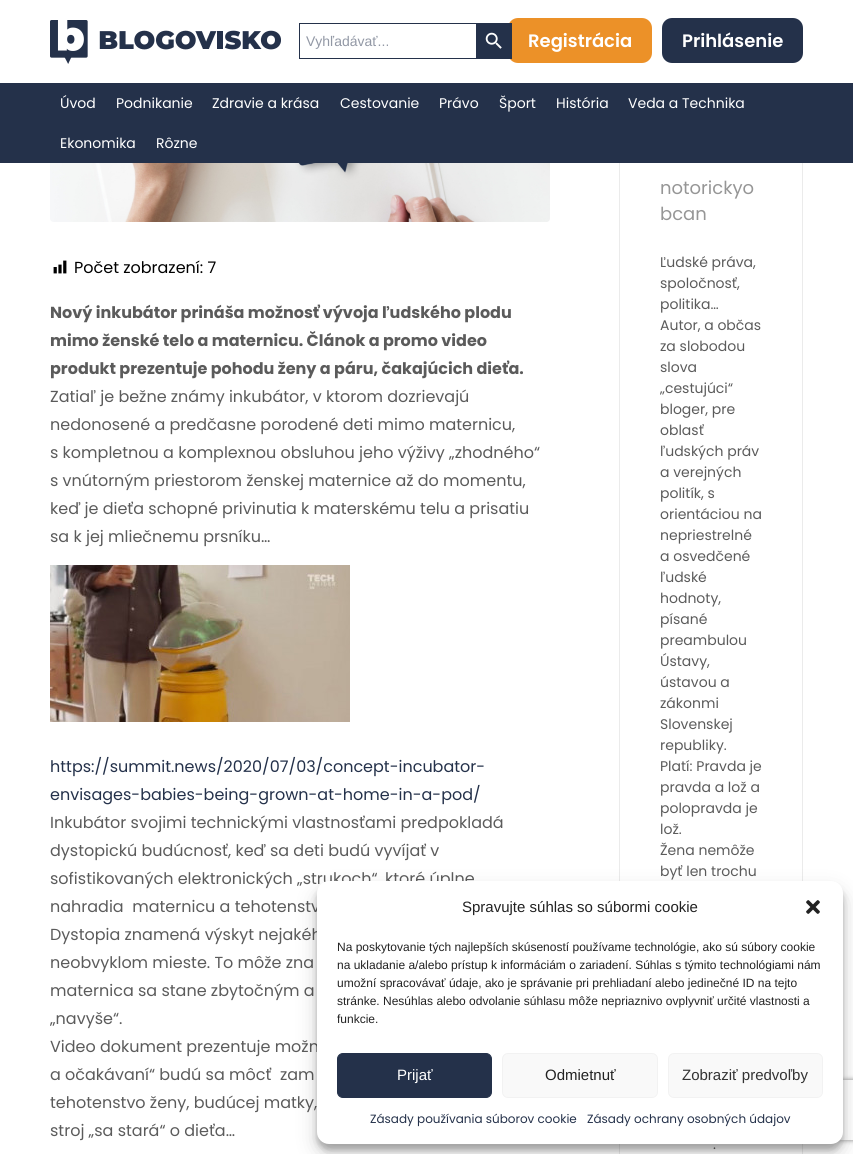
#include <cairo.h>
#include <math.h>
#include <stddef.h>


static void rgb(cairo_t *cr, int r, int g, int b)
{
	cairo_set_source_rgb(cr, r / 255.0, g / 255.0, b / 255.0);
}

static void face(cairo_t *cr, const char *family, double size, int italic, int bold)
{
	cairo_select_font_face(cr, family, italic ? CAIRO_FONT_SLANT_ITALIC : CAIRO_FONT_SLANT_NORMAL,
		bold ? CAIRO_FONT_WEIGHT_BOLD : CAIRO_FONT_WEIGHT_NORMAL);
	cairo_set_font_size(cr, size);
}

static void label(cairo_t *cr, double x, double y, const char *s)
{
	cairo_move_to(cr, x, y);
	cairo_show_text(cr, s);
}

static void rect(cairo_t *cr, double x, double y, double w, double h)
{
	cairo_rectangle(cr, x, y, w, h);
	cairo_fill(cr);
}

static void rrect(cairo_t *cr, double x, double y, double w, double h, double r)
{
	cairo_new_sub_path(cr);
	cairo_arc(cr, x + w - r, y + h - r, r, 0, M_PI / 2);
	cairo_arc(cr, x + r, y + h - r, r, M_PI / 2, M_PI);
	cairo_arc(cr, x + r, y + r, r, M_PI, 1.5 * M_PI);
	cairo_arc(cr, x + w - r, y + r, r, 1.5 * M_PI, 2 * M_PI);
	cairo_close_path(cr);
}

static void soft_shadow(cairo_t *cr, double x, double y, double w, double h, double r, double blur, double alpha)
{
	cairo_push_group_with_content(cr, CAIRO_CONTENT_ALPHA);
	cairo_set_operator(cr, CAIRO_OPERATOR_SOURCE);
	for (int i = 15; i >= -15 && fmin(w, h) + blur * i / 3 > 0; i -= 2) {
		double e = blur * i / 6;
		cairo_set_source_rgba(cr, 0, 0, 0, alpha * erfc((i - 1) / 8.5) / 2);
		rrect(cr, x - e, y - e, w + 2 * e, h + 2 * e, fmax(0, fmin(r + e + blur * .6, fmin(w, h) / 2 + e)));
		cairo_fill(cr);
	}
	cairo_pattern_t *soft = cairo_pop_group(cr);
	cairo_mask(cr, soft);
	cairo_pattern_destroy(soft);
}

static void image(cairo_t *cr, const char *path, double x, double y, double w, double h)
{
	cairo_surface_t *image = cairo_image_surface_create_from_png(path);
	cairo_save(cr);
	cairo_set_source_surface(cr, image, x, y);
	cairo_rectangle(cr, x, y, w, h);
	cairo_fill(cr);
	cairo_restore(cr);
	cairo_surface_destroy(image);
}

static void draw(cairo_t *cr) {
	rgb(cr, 255, 255, 255);
	cairo_paint(cr);
	cairo_rectangle(cr, 619.5, -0.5, 183, 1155);
	rgb(cr, 235, 235, 235);
	cairo_set_line_width(cr, 1);
	cairo_stroke(cr);
	rgb(cr, 255, 255, 255);
	rect(cr, 619, 0, 184, 83);
	image(cr, "image0.png", 50, 20, 231, 44);
	rgb(cr, 36, 49, 74);
	rect(cr, 299, 23, 177, 1);
	rect(cr, 299, 58, 177, 1);
	rect(cr, 299, 23, 1, 36);
	face(cr, "Liberation Sans", 14, 0, 0);
	rgb(cr, 146, 152, 165);
	label(cr, 306, 46, "Vyhľadávať...");
	rgb(cr, 236, 145, 40);
	rrect(cr, 508, 18, 144, 45, 10);
	cairo_fill(cr);
	rgb(cr, 36, 49, 74);
	rect(cr, 476, 23, 36, 36);
	image(cr, "image1.png", 485, 32, 17, 17);
	face(cr, "Poppins SemiBold", 18, 0, 0);
	rgb(cr, 255, 255, 255);
	label(cr, 528, 47, "Registrácia");
	rgb(cr, 36, 49, 74);
	rrect(cr, 662, 18, 141, 45, 10);
	cairo_fill(cr);
	rgb(cr, 255, 255, 255);
	label(cr, 682, 47, "Prihlásenie");
	rgb(cr, 36, 49, 74);
	rect(cr, 0, 83, 853, 80);
	face(cr, "Poppins", 14, 0, 0);
	rgb(cr, 255, 255, 255);
	label(cr, 60, 108, "Úvod");
	label(cr, 116, 108, "Podnikanie");
	label(cr, 212, 108, "Zdravie a krása");
	label(cr, 340, 108, "Cestovanie");
	label(cr, 439, 108, "Právo");
	label(cr, 499, 108, "Šport");
	label(cr, 556, 108, "História");
	label(cr, 628, 108, "Veda a Technika");
	label(cr, 60, 148, "Ekonomika");
	label(cr, 156, 148, "Rôzne");
	image(cr, "image2.png", 50, 163, 500, 59);
	image(cr, "image3.png", 53, 260, 14, 14);
	face(cr, "Poppins", 16, 0, 0);
	rgb(cr, 0, 0, 0);
	label(cr, 74, 273, "Počet zobrazení: 7");
	face(cr, "Poppins", 16, 0, 1);
	rgb(cr, 91, 91, 91);
	label(cr, 50, 318, "Nový inkubátor prináša možnosť vývoja ľudského plodu");
	label(cr, 50, 346, "mimo ženské telo a maternicu. Článok a promo video");
	label(cr, 50, 374, "produkt prezentuje pohodu ženy a páru, čakajúcich dieťa.");
	face(cr, "Poppins", 16, 0, 0);
	label(cr, 50, 402, "Zatiaľ je bežne známy inkubátor, v ktorom dozrievajú");
	label(cr, 50, 430, "nedonosené a predčasne porodené deti mimo maternicu,");
	label(cr, 50, 458, "s kompletnou a komplexnou obsluhou jeho výživy „zhodného“");
	label(cr, 50, 486, "s vnútorným priestorom ženskej maternice až do momentu,");
	label(cr, 50, 514, "keď je dieťa schopné privinutia k materskému telu a prisatiu");
	label(cr, 50, 542, "sa k jej mliečnemu prsníku…");
	image(cr, "image4.png", 50, 565, 300, 157);
	rgb(cr, 36, 49, 74);
	label(cr, 50, 772, "https://summit.news/2020/07/03/concept-incubator-");
	label(cr, 50, 800, "envisages-babies-being-grown-at-home-in-a-pod/");
	rgb(cr, 91, 91, 91);
	label(cr, 50, 828, "Inkubátor svojimi technickými vlastnosťami predpokladá");
	label(cr, 50, 856, "dystopickú budúcnosť, keď sa deti budú vyvíjať v");
	label(cr, 50, 884, "sofistikovaných elektronických „strukoch“, ktoré úplne");
	label(cr, 50, 912, "nahradia  maternicu a tehotenstv");
	label(cr, 50, 940, "Dystopia znamená výskyt nejakéh");
	label(cr, 50, 968, "neobvyklom mieste. To môže zna");
	label(cr, 50, 996, "maternica sa stane zbytočným a");
	label(cr, 50, 1024, "„navyše“.");
	label(cr, 50, 1052, "Video dokument prezentuje možn");
	label(cr, 50, 1080, "a očakávaní“ budú sa môcť  zam");
	label(cr, 50, 1108, "tehotenstvo ženy, budúcej matky,");
	label(cr, 50, 1136, "stroj „sa stará“ o dieťa…");
	face(cr, "Poppins", 18, 0, 0);
	rgb(cr, 150, 150, 150);
	label(cr, 660, 194, "notorickyo");
	label(cr, 660, 220, "bcan");
	face(cr, "Poppins", 14, 0, 0);
	rgb(cr, 91, 91, 91);
	label(cr, 660, 267, "Ľudské práva,");
	label(cr, 660, 288, "spoločnosť,");
	label(cr, 660, 309, "politika…");
	label(cr, 660, 330, "Autor, a občas");
	label(cr, 660, 351, "za slobodou");
	label(cr, 660, 372, "slova");
	label(cr, 660, 393, "„cestujúci“");
	label(cr, 660, 414, "bloger, pre");
	label(cr, 660, 435, "oblasť");
	label(cr, 660, 456, "ľudských práv");
	label(cr, 660, 477, "a verejných");
	label(cr, 660, 498, "politík, s");
	label(cr, 660, 519, "orientáciou na");
	label(cr, 660, 540, "nepriestrelné");
	label(cr, 660, 561, "a osvedčené");
	label(cr, 660, 582, "ľudské");
	label(cr, 660, 603, "hodnoty,");
	label(cr, 660, 624, "písané");
	label(cr, 660, 645, "preambulou");
	label(cr, 660, 666, "Ústavy,");
	label(cr, 660, 687, "ústavou a");
	label(cr, 660, 708, "zákonmi");
	label(cr, 660, 729, "Slovenskej");
	label(cr, 660, 750, "republiky.");
	label(cr, 660, 771, "Platí: Pravda je");
	label(cr, 660, 792, "pravda a lož a");
	label(cr, 660, 813, "polopravda je");
	label(cr, 660, 834, "lož.");
	label(cr, 660, 855, "Žena nemôže");
	label(cr, 660, 876, "byť len trochu");
	label(cr, 713, 1149, ".");
	rgb(cr, 0, 0, 0);
	soft_shadow(cr, 317, 887, 526, 263, 12, 3, 0.23);
	soft_shadow(cr, 317, 891, 526, 263, 12, 10, 0.19);
	cairo_save(cr);
	cairo_set_fill_rule(cr, CAIRO_FILL_RULE_EVEN_ODD);
	cairo_new_path(cr);
	cairo_move_to(cr, 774, 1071);
	cairo_line_to(cr, 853, 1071);
	cairo_line_to(cr, 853, 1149);
	cairo_line_to(cr, 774, 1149);
	cairo_close_path(cr);
	cairo_move_to(cr, 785, 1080);
	cairo_line_to(cr, 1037, 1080);
	cairo_curve_to(cr, 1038, 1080, 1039, 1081, 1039, 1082);
	cairo_line_to(cr, 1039, 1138);
	cairo_curve_to(cr, 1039, 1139, 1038, 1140, 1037, 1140);
	cairo_line_to(cr, 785, 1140);
	cairo_curve_to(cr, 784, 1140, 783, 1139, 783, 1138);
	cairo_line_to(cr, 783, 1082);
	cairo_curve_to(cr, 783, 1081, 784, 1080, 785, 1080);
	cairo_close_path(cr);
	cairo_clip(cr);
	rgb(cr, 128, 128, 128);
	soft_shadow(cr, 783, 1080, 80, 60, 2, 2.5, 1);
	cairo_restore(cr);
	rgb(cr, 255, 255, 255);
	rrect(cr, 317, 881, 526, 263, 12);
	cairo_fill(cr);
	face(cr, "Liberation Sans", 15, 0, 0);
	rgb(cr, 34, 34, 34);
	label(cr, 462, 912, "Spravujte súhlas so súbormi cookie");
	image(cr, "image5.png", 806, 900, 14, 14);
	face(cr, "Liberation Sans", 12, 0, 0);
	label(cr, 337, 951, "Na poskytovanie tých najlepších skúseností používame technológie, ako sú súbory cookie");
	label(cr, 337, 969, "na ukladanie a/alebo prístup k informáciám o zariadení. Súhlas s týmito technológiami nám");
	label(cr, 337, 987, "umožní spracovávať údaje, ako je správanie pri prehliadaní alebo jedinečné ID na tejto");
	label(cr, 337, 1005, "stránke. Nesúhlas alebo odvolanie súhlasu môže nepriaznivo ovplyvniť určité vlastnosti a");
	label(cr, 337, 1023, "funkcie.");
	rgb(cr, 36, 49, 74);
	rrect(cr, 337.5, 1053.5, 154, 44, 5.5);
	cairo_fill_preserve(cr);
	cairo_stroke(cr);
	face(cr, "Liberation Sans", 15, 0, 0);
	rgb(cr, 255, 255, 255);
	label(cr, 397, 1080, "Prijať");
	rgb(cr, 249, 249, 249);
	rrect(cr, 502.5, 1053.5, 155, 44, 5.5);
	cairo_fill_preserve(cr);
	rgb(cr, 242, 242, 242);
	cairo_stroke(cr);
	rgb(cr, 34, 34, 34);
	label(cr, 545, 1080, "Odmietnuť");
	rgb(cr, 249, 249, 249);
	rrect(cr, 668.5, 1053.5, 154, 44, 5.5);
	cairo_fill_preserve(cr);
	rgb(cr, 242, 242, 242);
	cairo_stroke(cr);
	rgb(cr, 51, 51, 51);
	label(cr, 682, 1080, "Zobraziť predvoľby");
	face(cr, "Poppins", 12, 0, 0);
	rgb(cr, 36, 49, 74);
	label(cr, 370, 1123, "Zásady používania súborov cookie");
	label(cr, 587, 1123, "Zásady ochrany osobných údajov");
}

int main(void) {
	cairo_surface_t *surface = cairo_image_surface_create(CAIRO_FORMAT_RGB24, 853, 1154);
	cairo_t *cr = cairo_create(surface);
	cairo_font_options_t *options = cairo_font_options_create();
	cairo_font_options_set_hint_metrics(options, CAIRO_HINT_METRICS_OFF);
	cairo_font_options_set_hint_style(options, CAIRO_HINT_STYLE_NONE);
	cairo_set_font_options(cr, options);
	cairo_set_miter_limit(cr, 4);
	draw(cr);
	cairo_surface_write_to_png(surface, "render.png");
	cairo_font_options_destroy(options);
	cairo_destroy(cr);
	cairo_surface_destroy(surface);
	return 0;
}
